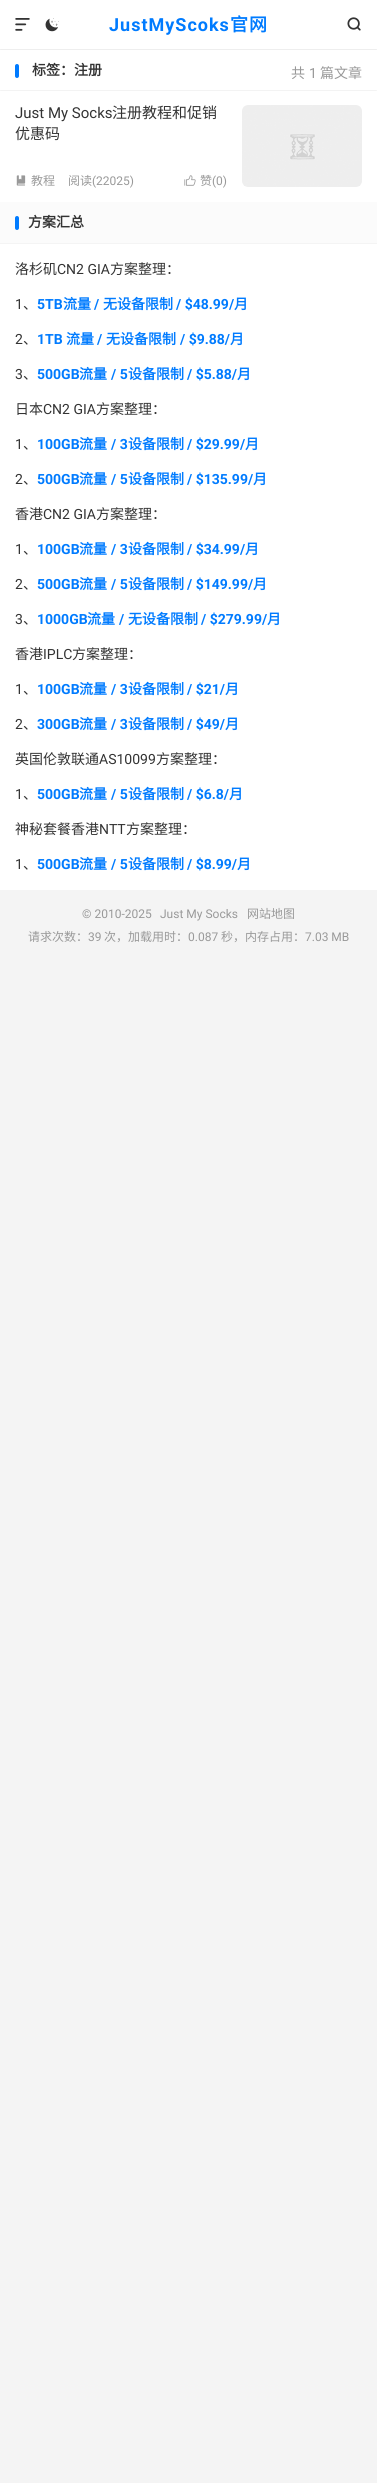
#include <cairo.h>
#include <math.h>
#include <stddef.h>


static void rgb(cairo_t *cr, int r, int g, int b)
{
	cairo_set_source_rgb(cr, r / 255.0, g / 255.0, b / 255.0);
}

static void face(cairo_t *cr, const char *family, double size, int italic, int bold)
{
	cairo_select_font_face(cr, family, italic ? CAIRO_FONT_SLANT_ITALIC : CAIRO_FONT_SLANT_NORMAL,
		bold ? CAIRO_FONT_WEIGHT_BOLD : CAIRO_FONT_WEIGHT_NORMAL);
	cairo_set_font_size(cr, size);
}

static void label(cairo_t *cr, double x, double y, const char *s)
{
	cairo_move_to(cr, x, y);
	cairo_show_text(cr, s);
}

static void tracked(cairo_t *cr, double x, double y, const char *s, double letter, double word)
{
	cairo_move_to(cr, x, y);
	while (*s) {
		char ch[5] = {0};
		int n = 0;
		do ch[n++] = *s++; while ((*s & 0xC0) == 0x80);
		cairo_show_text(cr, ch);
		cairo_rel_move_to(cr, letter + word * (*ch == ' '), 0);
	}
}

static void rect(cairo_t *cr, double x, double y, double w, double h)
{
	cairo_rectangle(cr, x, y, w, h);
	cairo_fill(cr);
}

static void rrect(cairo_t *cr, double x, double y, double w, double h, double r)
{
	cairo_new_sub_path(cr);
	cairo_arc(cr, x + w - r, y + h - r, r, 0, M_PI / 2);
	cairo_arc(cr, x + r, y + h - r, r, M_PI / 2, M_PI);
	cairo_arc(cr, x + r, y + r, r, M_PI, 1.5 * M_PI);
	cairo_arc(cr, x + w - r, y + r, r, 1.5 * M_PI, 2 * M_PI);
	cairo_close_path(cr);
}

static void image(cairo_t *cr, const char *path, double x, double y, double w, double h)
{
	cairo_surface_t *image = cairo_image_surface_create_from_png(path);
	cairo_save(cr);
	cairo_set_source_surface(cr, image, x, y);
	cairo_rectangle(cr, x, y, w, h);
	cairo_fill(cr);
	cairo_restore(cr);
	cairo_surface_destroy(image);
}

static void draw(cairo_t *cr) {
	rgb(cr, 244, 244, 244);
	cairo_paint(cr);
	rgb(cr, 255, 255, 255);
	rect(cr, 0, 0, 377, 202);
	image(cr, "image0.png", 15, 18, 15, 13);
	image(cr, "image1.png", 45, 18, 14, 14);
	face(cr, "Roboto", 18, 0, 1);
	rgb(cr, 0, 123, 255);
	tracked(cr, 109, 31, "JustMyScoks", 1, 0);
	face(cr, "Noto Sans CJK SC", 18, 0, 1);
	tracked(cr, 230, 31, "官网", 1, 0);
	image(cr, "image2.png", 347, 17, 14, 14);
	rgb(cr, 238, 238, 238);
	rrect(cr, 0, 49, 377, 1, 0.5);
	cairo_fill(cr);
	rgb(cr, 0, 123, 255);
	rrect(cr, 15, 64, 4, 14, 2);
	cairo_fill(cr);
	face(cr, "Noto Sans CJK SC", 14, 0, 1);
	rgb(cr, 51, 51, 51);
	label(cr, 32, 75, "标签：注册");
	face(cr, "Noto Sans CJK SC", 14, 0, 0);
	rgb(cr, 153, 153, 153);
	label(cr, 291, 78, "共");
	face(cr, "Roboto", 14, 0, 0);
	label(cr, 309, 78, "1");
	face(cr, "Noto Sans CJK SC", 14, 0, 0);
	label(cr, 320, 78, "篇文章");
	rgb(cr, 243, 243, 243);
	rrect(cr, 0, 90, 377, 1, 0.5);
	cairo_fill(cr);
	face(cr, "Roboto", 15, 0, 0);
	rgb(cr, 51, 51, 51);
	label(cr, 15, 118, "Just My Socks");
	face(cr, "Noto Sans CJK SC", 15, 0, 0);
	label(cr, 112, 118, "注册教程和促销");
	label(cr, 15, 139, "优惠码");
	image(cr, "image3.png", 242, 105, 120, 82);
	image(cr, "image4.png", 16, 175, 10, 11);
	face(cr, "Noto Sans CJK SC", 12, 0, 0);
	rgb(cr, 153, 153, 153);
	label(cr, 31, 185, "教程");
	label(cr, 68, 185, "阅读");
	face(cr, "Roboto", 12, 0, 0);
	label(cr, 92, 185, "(22025)");
	image(cr, "image5.png", 184, 175, 12, 11);
	face(cr, "Noto Sans CJK SC", 12, 0, 0);
	label(cr, 200, 185, "赞");
	face(cr, "Roboto", 12, 0, 0);
	label(cr, 212, 185, "(0)");
	rgb(cr, 255, 255, 255);
	rect(cr, 0, 244, 377, 646);
	rgb(cr, 251, 251, 251);
	rect(cr, 0, 202, 377, 41);
	rgb(cr, 0, 123, 255);
	rrect(cr, 15, 216, 4, 14, 2);
	cairo_fill(cr);
	face(cr, "Noto Sans CJK SC", 14, 0, 1);
	rgb(cr, 51, 51, 51);
	label(cr, 28, 227, "方案汇总");
	face(cr, "Noto Sans CJK SC", 14, 0, 0);
	label(cr, 15, 274, "洛杉矶");
	face(cr, "Roboto", 14, 0, 0);
	label(cr, 57, 274, "CN2 GIA");
	face(cr, "Noto Sans CJK SC", 14, 0, 0);
	label(cr, 110, 274, "方案整理：");
	face(cr, "Roboto", 14, 0, 0);
	label(cr, 15, 309, "1");
	face(cr, "Noto Sans CJK SC", 14, 0, 0);
	label(cr, 23, 309, "、");
	face(cr, "Roboto", 14, 0, 1);
	rgb(cr, 0, 123, 255);
	label(cr, 37, 309, "5TB");
	face(cr, "Noto Sans CJK SC", 14, 0, 1);
	label(cr, 63, 309, "流量");
	face(cr, "Roboto", 14, 0, 1);
	label(cr, 94, 309, "/");
	face(cr, "Noto Sans CJK SC", 14, 0, 1);
	label(cr, 103, 309, "无设备限制");
	face(cr, "Roboto", 14, 0, 1);
	label(cr, 176, 309, "/ $48.99/");
	face(cr, "Noto Sans CJK SC", 14, 0, 1);
	label(cr, 234, 309, "月");
	face(cr, "Roboto", 14, 0, 0);
	rgb(cr, 51, 51, 51);
	label(cr, 15, 344, "2");
	face(cr, "Noto Sans CJK SC", 14, 0, 0);
	label(cr, 23, 344, "、");
	face(cr, "Roboto", 14, 0, 1);
	rgb(cr, 0, 123, 255);
	label(cr, 37, 344, "1TB");
	face(cr, "Noto Sans CJK SC", 14, 0, 1);
	label(cr, 66, 344, "流量");
	face(cr, "Roboto", 14, 0, 1);
	label(cr, 97, 344, "/");
	face(cr, "Noto Sans CJK SC", 14, 0, 1);
	label(cr, 106, 344, "无设备限制");
	face(cr, "Roboto", 14, 0, 1);
	label(cr, 180, 344, "/ $9.88/");
	face(cr, "Noto Sans CJK SC", 14, 0, 1);
	label(cr, 230, 344, "月");
	face(cr, "Roboto", 14, 0, 0);
	rgb(cr, 51, 51, 51);
	label(cr, 15, 379, "3");
	face(cr, "Noto Sans CJK SC", 14, 0, 0);
	label(cr, 23, 379, "、");
	face(cr, "Roboto", 14, 0, 1);
	rgb(cr, 0, 123, 255);
	label(cr, 37, 379, "500GB");
	face(cr, "Noto Sans CJK SC", 14, 0, 1);
	label(cr, 79, 379, "流量");
	face(cr, "Roboto", 14, 0, 1);
	label(cr, 111, 379, "/ 5");
	face(cr, "Noto Sans CJK SC", 14, 0, 1);
	label(cr, 128, 379, "设备限制");
	face(cr, "Roboto", 14, 0, 1);
	label(cr, 187, 379, "/ $5.88/");
	face(cr, "Noto Sans CJK SC", 14, 0, 1);
	label(cr, 237, 379, "月");
	face(cr, "Noto Sans CJK SC", 14, 0, 0);
	rgb(cr, 51, 51, 51);
	label(cr, 15, 414, "日本");
	face(cr, "Roboto", 14, 0, 0);
	label(cr, 43, 414, "CN2 GIA");
	face(cr, "Noto Sans CJK SC", 14, 0, 0);
	label(cr, 96, 414, "方案整理：");
	face(cr, "Roboto", 14, 0, 0);
	label(cr, 15, 449, "1");
	face(cr, "Noto Sans CJK SC", 14, 0, 0);
	label(cr, 23, 449, "、");
	face(cr, "Roboto", 14, 0, 1);
	rgb(cr, 0, 123, 255);
	label(cr, 37, 449, "100GB");
	face(cr, "Noto Sans CJK SC", 14, 0, 1);
	label(cr, 79, 449, "流量");
	face(cr, "Roboto", 14, 0, 1);
	label(cr, 111, 449, "/ 3");
	face(cr, "Noto Sans CJK SC", 14, 0, 1);
	label(cr, 128, 449, "设备限制");
	face(cr, "Roboto", 14, 0, 1);
	label(cr, 187, 449, "/ $29.99/");
	face(cr, "Noto Sans CJK SC", 14, 0, 1);
	label(cr, 245, 449, "月");
	face(cr, "Roboto", 14, 0, 0);
	rgb(cr, 51, 51, 51);
	label(cr, 15, 484, "2");
	face(cr, "Noto Sans CJK SC", 14, 0, 0);
	label(cr, 23, 484, "、");
	face(cr, "Roboto", 14, 0, 1);
	rgb(cr, 0, 123, 255);
	label(cr, 37, 484, "500GB");
	face(cr, "Noto Sans CJK SC", 14, 0, 1);
	label(cr, 79, 484, "流量");
	face(cr, "Roboto", 14, 0, 1);
	label(cr, 111, 484, "/ 5");
	face(cr, "Noto Sans CJK SC", 14, 0, 1);
	label(cr, 128, 484, "设备限制");
	face(cr, "Roboto", 14, 0, 1);
	label(cr, 187, 484, "/ $135.99/");
	face(cr, "Noto Sans CJK SC", 14, 0, 1);
	label(cr, 253, 484, "月");
	face(cr, "Noto Sans CJK SC", 14, 0, 0);
	rgb(cr, 51, 51, 51);
	label(cr, 15, 519, "香港");
	face(cr, "Roboto", 14, 0, 0);
	label(cr, 43, 519, "CN2 GIA");
	face(cr, "Noto Sans CJK SC", 14, 0, 0);
	label(cr, 96, 519, "方案整理：");
	face(cr, "Roboto", 14, 0, 0);
	label(cr, 15, 554, "1");
	face(cr, "Noto Sans CJK SC", 14, 0, 0);
	label(cr, 23, 554, "、");
	face(cr, "Roboto", 14, 0, 1);
	rgb(cr, 0, 123, 255);
	label(cr, 37, 554, "100GB");
	face(cr, "Noto Sans CJK SC", 14, 0, 1);
	label(cr, 79, 554, "流量");
	face(cr, "Roboto", 14, 0, 1);
	label(cr, 111, 554, "/ 3");
	face(cr, "Noto Sans CJK SC", 14, 0, 1);
	label(cr, 128, 554, "设备限制");
	face(cr, "Roboto", 14, 0, 1);
	label(cr, 187, 554, "/ $34.99/");
	face(cr, "Noto Sans CJK SC", 14, 0, 1);
	label(cr, 245, 554, "月");
	face(cr, "Roboto", 14, 0, 0);
	rgb(cr, 51, 51, 51);
	label(cr, 15, 589, "2");
	face(cr, "Noto Sans CJK SC", 14, 0, 0);
	label(cr, 23, 589, "、");
	face(cr, "Roboto", 14, 0, 1);
	rgb(cr, 0, 123, 255);
	label(cr, 37, 589, "500GB");
	face(cr, "Noto Sans CJK SC", 14, 0, 1);
	label(cr, 79, 589, "流量");
	face(cr, "Roboto", 14, 0, 1);
	label(cr, 111, 589, "/ 5");
	face(cr, "Noto Sans CJK SC", 14, 0, 1);
	label(cr, 128, 589, "设备限制");
	face(cr, "Roboto", 14, 0, 1);
	label(cr, 187, 589, "/ $149.99/");
	face(cr, "Noto Sans CJK SC", 14, 0, 1);
	label(cr, 253, 589, "月");
	face(cr, "Roboto", 14, 0, 0);
	rgb(cr, 51, 51, 51);
	label(cr, 15, 624, "3");
	face(cr, "Noto Sans CJK SC", 14, 0, 0);
	label(cr, 23, 624, "、");
	face(cr, "Roboto", 14, 0, 1);
	rgb(cr, 0, 123, 255);
	label(cr, 37, 624, "1000GB");
	face(cr, "Noto Sans CJK SC", 14, 0, 1);
	label(cr, 87, 624, "流量");
	face(cr, "Roboto", 14, 0, 1);
	label(cr, 119, 624, "/");
	face(cr, "Noto Sans CJK SC", 14, 0, 1);
	label(cr, 128, 624, "无设备限制");
	face(cr, "Roboto", 14, 0, 1);
	label(cr, 201, 624, "/ $279.99/");
	face(cr, "Noto Sans CJK SC", 14, 0, 1);
	label(cr, 267, 624, "月");
	face(cr, "Noto Sans CJK SC", 14, 0, 0);
	rgb(cr, 51, 51, 51);
	label(cr, 15, 659, "香港");
	face(cr, "Roboto", 14, 0, 0);
	label(cr, 43, 659, "IPLC");
	face(cr, "Noto Sans CJK SC", 14, 0, 0);
	label(cr, 72, 659, "方案整理：");
	face(cr, "Roboto", 14, 0, 0);
	label(cr, 15, 694, "1");
	face(cr, "Noto Sans CJK SC", 14, 0, 0);
	label(cr, 23, 694, "、");
	face(cr, "Roboto", 14, 0, 1);
	rgb(cr, 0, 123, 255);
	label(cr, 37, 694, "100GB");
	face(cr, "Noto Sans CJK SC", 14, 0, 1);
	label(cr, 79, 694, "流量");
	face(cr, "Roboto", 14, 0, 1);
	label(cr, 111, 694, "/ 3");
	face(cr, "Noto Sans CJK SC", 14, 0, 1);
	label(cr, 128, 694, "设备限制");
	face(cr, "Roboto", 14, 0, 1);
	label(cr, 187, 694, "/ $21/");
	face(cr, "Noto Sans CJK SC", 14, 0, 1);
	label(cr, 225, 694, "月");
	face(cr, "Roboto", 14, 0, 0);
	rgb(cr, 51, 51, 51);
	label(cr, 15, 729, "2");
	face(cr, "Noto Sans CJK SC", 14, 0, 0);
	label(cr, 23, 729, "、");
	face(cr, "Roboto", 14, 0, 1);
	rgb(cr, 0, 123, 255);
	label(cr, 37, 729, "300GB");
	face(cr, "Noto Sans CJK SC", 14, 0, 1);
	label(cr, 79, 729, "流量");
	face(cr, "Roboto", 14, 0, 1);
	label(cr, 111, 729, "/ 3");
	face(cr, "Noto Sans CJK SC", 14, 0, 1);
	label(cr, 128, 729, "设备限制");
	face(cr, "Roboto", 14, 0, 1);
	label(cr, 187, 729, "/ $49/");
	face(cr, "Noto Sans CJK SC", 14, 0, 1);
	label(cr, 225, 729, "月");
	face(cr, "Noto Sans CJK SC", 14, 0, 0);
	rgb(cr, 51, 51, 51);
	label(cr, 15, 764, "英国伦敦联通");
	face(cr, "Roboto", 14, 0, 0);
	label(cr, 99, 764, "AS10099");
	face(cr, "Noto Sans CJK SC", 14, 0, 0);
	label(cr, 156, 764, "方案整理：");
	face(cr, "Roboto", 14, 0, 0);
	label(cr, 15, 799, "1");
	face(cr, "Noto Sans CJK SC", 14, 0, 0);
	label(cr, 23, 799, "、");
	face(cr, "Roboto", 14, 0, 1);
	rgb(cr, 0, 123, 255);
	label(cr, 37, 799, "500GB");
	face(cr, "Noto Sans CJK SC", 14, 0, 1);
	label(cr, 79, 799, "流量");
	face(cr, "Roboto", 14, 0, 1);
	label(cr, 111, 799, "/ 5");
	face(cr, "Noto Sans CJK SC", 14, 0, 1);
	label(cr, 128, 799, "设备限制");
	face(cr, "Roboto", 14, 0, 1);
	label(cr, 187, 799, "/ $6.8/");
	face(cr, "Noto Sans CJK SC", 14, 0, 1);
	label(cr, 229, 799, "月");
	face(cr, "Noto Sans CJK SC", 14, 0, 0);
	rgb(cr, 51, 51, 51);
	label(cr, 15, 834, "神秘套餐香港");
	face(cr, "Roboto", 14, 0, 0);
	label(cr, 99, 834, "NTT");
	face(cr, "Noto Sans CJK SC", 14, 0, 0);
	label(cr, 126, 834, "方案整理：");
	face(cr, "Roboto", 14, 0, 0);
	label(cr, 15, 869, "1");
	face(cr, "Noto Sans CJK SC", 14, 0, 0);
	label(cr, 23, 869, "、");
	face(cr, "Roboto", 14, 0, 1);
	rgb(cr, 0, 123, 255);
	label(cr, 37, 869, "500GB");
	face(cr, "Noto Sans CJK SC", 14, 0, 1);
	label(cr, 79, 869, "流量");
	face(cr, "Roboto", 14, 0, 1);
	label(cr, 111, 869, "/ 5");
	face(cr, "Noto Sans CJK SC", 14, 0, 1);
	label(cr, 128, 869, "设备限制");
	face(cr, "Roboto", 14, 0, 1);
	label(cr, 187, 869, "/ $8.99/");
	face(cr, "Noto Sans CJK SC", 14, 0, 1);
	label(cr, 237, 869, "月");
	face(cr, "Roboto", 12, 0, 0);
	rgb(cr, 153, 153, 153);
	label(cr, 82, 918, "© 2010-2025");
	label(cr, 160, 918, "Just My Socks");
	face(cr, "Noto Sans CJK SC", 12, 0, 0);
	label(cr, 247, 918, "网站地图");
	label(cr, 28, 941, "请求次数：");
	face(cr, "Roboto", 12, 0, 0);
	label(cr, 88, 941, "39");
	face(cr, "Noto Sans CJK SC", 12, 0, 0);
	label(cr, 104, 941, "次，加载用时：");
	face(cr, "Roboto", 12, 0, 0);
	label(cr, 188, 941, "0.087");
	face(cr, "Noto Sans CJK SC", 12, 0, 0);
	label(cr, 221, 941, "秒，内存占用：");
	face(cr, "Roboto", 12, 0, 0);
	label(cr, 305, 941, "7.03 MB");
}

int main(void) {
	cairo_surface_t *surface = cairo_image_surface_create(CAIRO_FORMAT_RGB24, 377, 2483);
	cairo_t *cr = cairo_create(surface);
	cairo_font_options_t *options = cairo_font_options_create();
	cairo_font_options_set_hint_metrics(options, CAIRO_HINT_METRICS_OFF);
	cairo_font_options_set_hint_style(options, CAIRO_HINT_STYLE_NONE);
	cairo_set_font_options(cr, options);
	cairo_set_miter_limit(cr, 4);
	draw(cr);
	cairo_surface_write_to_png(surface, "render.png");
	cairo_font_options_destroy(options);
	cairo_destroy(cr);
	cairo_surface_destroy(surface);
	return 0;
}
